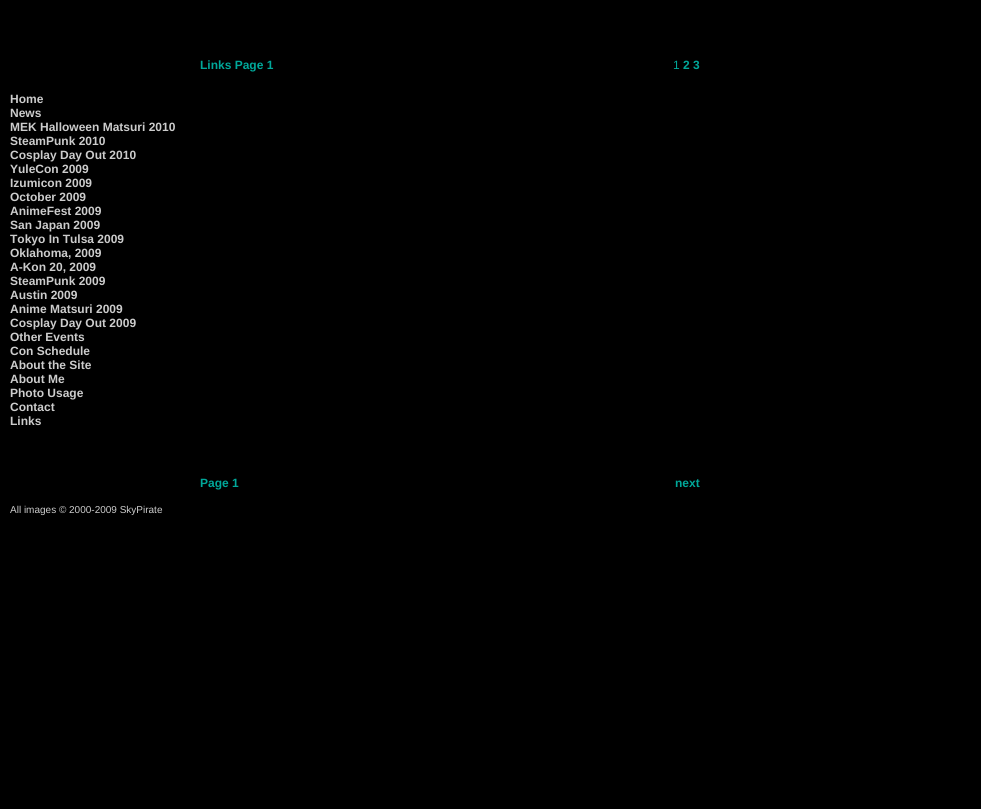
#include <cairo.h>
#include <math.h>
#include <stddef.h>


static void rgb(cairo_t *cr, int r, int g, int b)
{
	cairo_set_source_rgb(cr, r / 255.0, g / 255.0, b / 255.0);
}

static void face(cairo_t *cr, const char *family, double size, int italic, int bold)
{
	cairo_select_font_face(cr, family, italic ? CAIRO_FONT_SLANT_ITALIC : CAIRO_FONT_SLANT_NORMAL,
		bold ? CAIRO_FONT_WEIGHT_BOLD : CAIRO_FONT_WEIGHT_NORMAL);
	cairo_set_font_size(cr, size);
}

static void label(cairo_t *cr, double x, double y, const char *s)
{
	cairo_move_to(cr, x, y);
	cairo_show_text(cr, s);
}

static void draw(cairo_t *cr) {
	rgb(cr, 0, 0, 0);
	cairo_paint(cr);
	face(cr, "Liberation Sans", 12, 0, 1);
	rgb(cr, 0, 168, 154);
	label(cr, 200, 69, "Links Page 1");
	face(cr, "Liberation Sans", 12, 0, 0);
	label(cr, 673, 69, "1");
	face(cr, "Liberation Sans", 12, 0, 1);
	label(cr, 683, 69, "2 3");
	rgb(cr, 204, 204, 204);
	label(cr, 10, 103, "Home");
	label(cr, 10, 117, "News");
	label(cr, 10, 131, "MEK Halloween Matsuri 2010");
	label(cr, 10, 145, "SteamPunk 2010");
	label(cr, 10, 159, "Cosplay Day Out 2010");
	label(cr, 10, 173, "YuleCon 2009");
	label(cr, 10, 187, "Izumicon 2009");
	label(cr, 10, 201, "October 2009");
	label(cr, 10, 215, "AnimeFest 2009");
	label(cr, 10, 229, "San Japan 2009");
	label(cr, 10, 243, "Tokyo In Tulsa 2009");
	label(cr, 10, 257, "Oklahoma, 2009");
	label(cr, 10, 271, "A-Kon 20, 2009");
	label(cr, 10, 285, "SteamPunk 2009");
	label(cr, 10, 299, "Austin 2009");
	label(cr, 10, 313, "Anime Matsuri 2009");
	label(cr, 10, 327, "Cosplay Day Out 2009");
	label(cr, 10, 341, "Other Events");
	label(cr, 10, 355, "Con Schedule");
	label(cr, 10, 369, "About the Site");
	label(cr, 10, 383, "About Me");
	label(cr, 10, 397, "Photo Usage");
	label(cr, 10, 411, "Contact");
	label(cr, 10, 425, "Links");
	rgb(cr, 0, 168, 154);
	label(cr, 200, 487, "Page 1");
	label(cr, 675, 487, "next");
	face(cr, "Liberation Sans", 10, 0, 0);
	rgb(cr, 204, 204, 204);
	label(cr, 10, 513, "All images © 2000-2009 SkyPirate");
}

int main(void) {
	cairo_surface_t *surface = cairo_image_surface_create(CAIRO_FORMAT_RGB24, 981, 809);
	cairo_t *cr = cairo_create(surface);
	cairo_font_options_t *options = cairo_font_options_create();
	cairo_font_options_set_hint_metrics(options, CAIRO_HINT_METRICS_OFF);
	cairo_font_options_set_hint_style(options, CAIRO_HINT_STYLE_NONE);
	cairo_set_font_options(cr, options);
	cairo_set_miter_limit(cr, 4);
	draw(cr);
	cairo_surface_write_to_png(surface, "render.png");
	cairo_font_options_destroy(options);
	cairo_destroy(cr);
	cairo_surface_destroy(surface);
	return 0;
}
